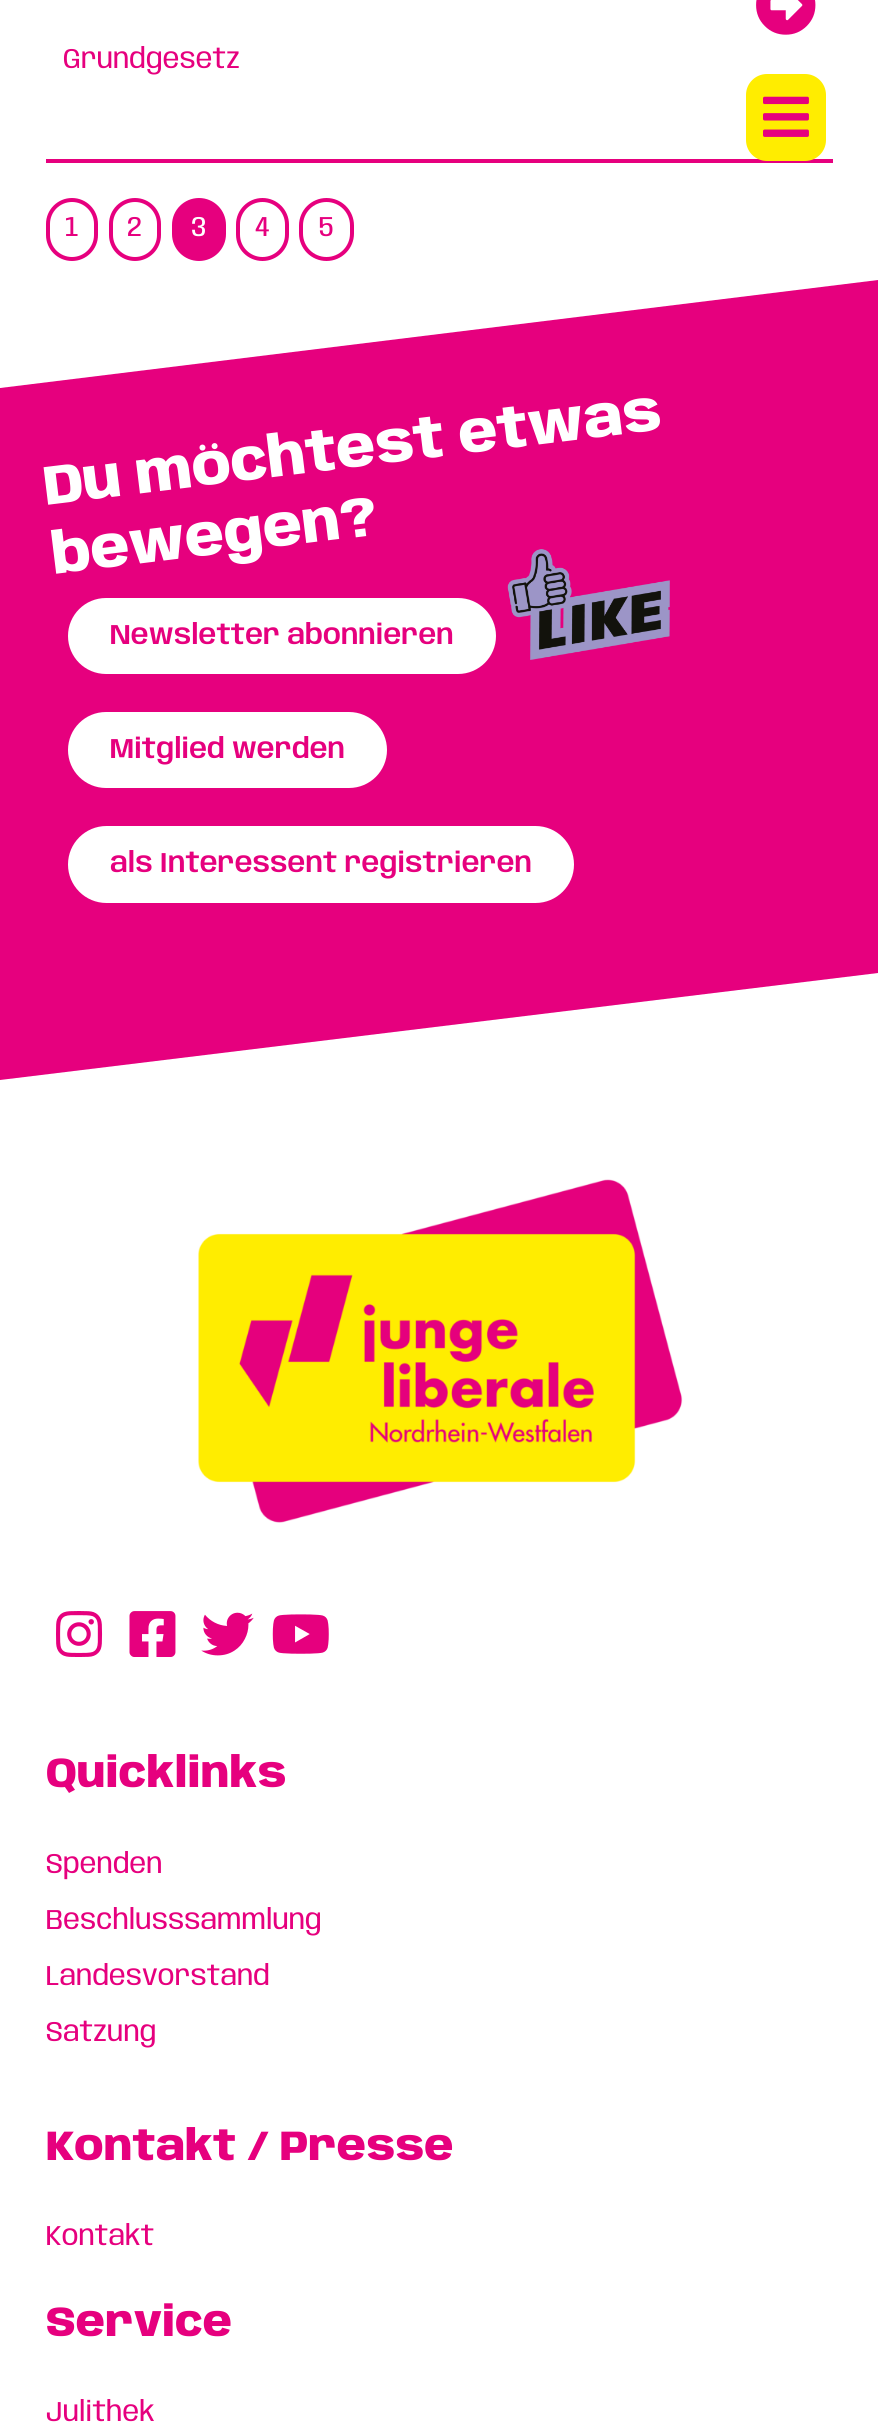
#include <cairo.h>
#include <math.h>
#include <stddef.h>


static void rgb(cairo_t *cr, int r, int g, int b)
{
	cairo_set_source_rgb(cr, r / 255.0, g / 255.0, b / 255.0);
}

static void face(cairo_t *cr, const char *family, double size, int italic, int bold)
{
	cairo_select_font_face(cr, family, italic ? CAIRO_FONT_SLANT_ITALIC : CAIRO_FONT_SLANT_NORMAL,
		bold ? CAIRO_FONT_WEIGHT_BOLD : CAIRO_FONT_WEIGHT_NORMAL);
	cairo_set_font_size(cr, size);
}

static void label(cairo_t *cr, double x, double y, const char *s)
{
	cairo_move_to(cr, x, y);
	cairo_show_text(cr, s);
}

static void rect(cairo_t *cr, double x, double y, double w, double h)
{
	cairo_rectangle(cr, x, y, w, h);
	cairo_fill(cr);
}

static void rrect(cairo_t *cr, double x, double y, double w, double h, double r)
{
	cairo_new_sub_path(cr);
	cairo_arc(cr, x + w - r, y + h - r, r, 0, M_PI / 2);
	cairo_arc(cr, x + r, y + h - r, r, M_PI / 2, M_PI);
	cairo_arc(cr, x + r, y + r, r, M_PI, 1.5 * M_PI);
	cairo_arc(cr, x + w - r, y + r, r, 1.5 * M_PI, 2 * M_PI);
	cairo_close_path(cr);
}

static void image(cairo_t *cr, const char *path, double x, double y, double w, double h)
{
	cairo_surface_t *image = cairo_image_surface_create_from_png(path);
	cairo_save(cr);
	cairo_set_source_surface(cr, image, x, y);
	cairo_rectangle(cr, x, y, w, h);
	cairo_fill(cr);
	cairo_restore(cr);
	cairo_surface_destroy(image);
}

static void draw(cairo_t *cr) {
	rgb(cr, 255, 255, 255);
	cairo_paint(cr);
	image(cr, "image0.png", 756, 0, 60, 35);
	face(cr, "Anybody", 28, 0, 0);
	rgb(cr, 230, 0, 126);
	label(cr, 63, 68, "Grundgesetz");
	rect(cr, 46, 159, 787, 4);
	rrect(cr, 48, 200, 48, 59, 24);
	cairo_set_line_width(cr, 4);
	cairo_stroke(cr);
	label(cr, 65, 236, "1");
	rrect(cr, 111, 200, 48, 59, 24);
	cairo_stroke(cr);
	label(cr, 127, 236, "2");
	rrect(cr, 174, 200, 50, 59, 25);
	cairo_fill_preserve(cr);
	cairo_stroke(cr);
	rgb(cr, 255, 255, 255);
	label(cr, 191, 236, "3");
	rrect(cr, 238, 200, 49, 59, 24.5);
	rgb(cr, 230, 0, 126);
	cairo_stroke(cr);
	label(cr, 255, 236, "4");
	rrect(cr, 301, 200, 51, 59, 25.5);
	cairo_stroke(cr);
	label(cr, 319, 236, "5");
	rgb(cr, 255, 237, 0);
	rrect(cr, 746, 74, 80, 87, 21);
	cairo_fill(cr);
	image(cr, "image1.png", 763, 96, 46, 41);
	rgb(cr, 230, 0, 126);
	cairo_new_path(cr);
	cairo_move_to(cr, 0, 388);
	cairo_line_to(cr, 878, 280);
	cairo_line_to(cr, 878, 973);
	cairo_line_to(cr, 0, 1080);
	cairo_close_path(cr);
	cairo_fill(cr);
	face(cr, "Anybody ExtraBold", 56, 0, 0);
	rgb(cr, 255, 255, 255);
	cairo_save(cr);
	cairo_translate(cr, 46, 505);
	cairo_rotate(cr, -7 * M_PI / 180);
	label(cr, 0, 0, "Du möchtest etwas");
	cairo_restore(cr);
	cairo_save(cr);
	cairo_translate(cr, 54, 574);
	cairo_rotate(cr, -7 * M_PI / 180);
	label(cr, 0, 0, "bewegen?");
	cairo_restore(cr);
	image(cr, "image2.png", 507, 549, 163, 111);
	rrect(cr, 65.5, 595.5, 433, 81, 40.5);
	cairo_fill_preserve(cr);
	rgb(cr, 230, 0, 126);
	cairo_set_line_width(cr, 5);
	cairo_stroke(cr);
	face(cr, "Anybody SemiBold", 28, 0, 0);
	label(cr, 110, 644, "Newsletter abonnieren");
	rgb(cr, 255, 255, 255);
	rrect(cr, 65.5, 709.5, 324, 81, 40.5);
	cairo_fill_preserve(cr);
	rgb(cr, 230, 0, 126);
	cairo_stroke(cr);
	label(cr, 110, 758, "Mitglied werden");
	rgb(cr, 255, 255, 255);
	rrect(cr, 65.5, 823.5, 511, 82, 41);
	cairo_fill_preserve(cr);
	rgb(cr, 230, 0, 126);
	cairo_stroke(cr);
	label(cr, 110, 872, "als Interessent registrieren");
	image(cr, "image3.png", 198, 1179, 485, 344);
	image(cr, "image4.png", 56, 1611, 47, 46);
	image(cr, "image5.png", 129, 1611, 47, 46);
	image(cr, "image6.png", 201, 1612, 53, 44);
	image(cr, "image7.png", 272, 1614, 57, 40);
	face(cr, "Anybody ExtraBold", 42, 0, 0);
	label(cr, 46, 1787, "Quicklinks");
	face(cr, "Anybody", 28, 0, 0);
	label(cr, 46, 1873, "Spenden");
	label(cr, 46, 1929, "Beschlusssammlung");
	label(cr, 46, 1985, "Landesvorstand");
	label(cr, 46, 2041, "Satzung");
	face(cr, "Anybody ExtraBold", 42, 0, 0);
	label(cr, 46, 2160, "Kontakt / Presse");
	face(cr, "Anybody", 28, 0, 0);
	label(cr, 46, 2245, "Kontakt");
	face(cr, "Anybody ExtraBold", 42, 0, 0);
	label(cr, 46, 2336, "Service");
	face(cr, "Anybody", 28, 0, 0);
	label(cr, 46, 2421, "Julithek");
}

int main(void) {
	cairo_surface_t *surface = cairo_image_surface_create(CAIRO_FORMAT_RGB24, 878, 2433);
	cairo_t *cr = cairo_create(surface);
	cairo_font_options_t *options = cairo_font_options_create();
	cairo_font_options_set_hint_metrics(options, CAIRO_HINT_METRICS_OFF);
	cairo_font_options_set_hint_style(options, CAIRO_HINT_STYLE_NONE);
	cairo_set_font_options(cr, options);
	cairo_set_miter_limit(cr, 4);
	draw(cr);
	cairo_surface_write_to_png(surface, "render.png");
	cairo_font_options_destroy(options);
	cairo_destroy(cr);
	cairo_surface_destroy(surface);
	return 0;
}
